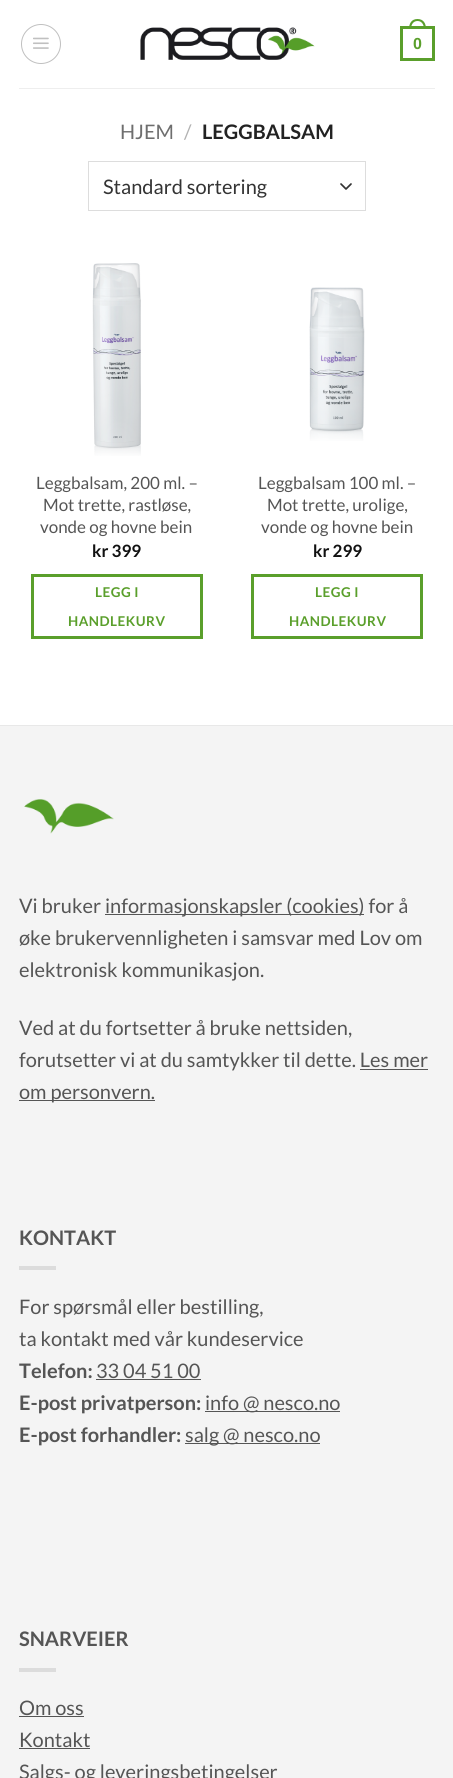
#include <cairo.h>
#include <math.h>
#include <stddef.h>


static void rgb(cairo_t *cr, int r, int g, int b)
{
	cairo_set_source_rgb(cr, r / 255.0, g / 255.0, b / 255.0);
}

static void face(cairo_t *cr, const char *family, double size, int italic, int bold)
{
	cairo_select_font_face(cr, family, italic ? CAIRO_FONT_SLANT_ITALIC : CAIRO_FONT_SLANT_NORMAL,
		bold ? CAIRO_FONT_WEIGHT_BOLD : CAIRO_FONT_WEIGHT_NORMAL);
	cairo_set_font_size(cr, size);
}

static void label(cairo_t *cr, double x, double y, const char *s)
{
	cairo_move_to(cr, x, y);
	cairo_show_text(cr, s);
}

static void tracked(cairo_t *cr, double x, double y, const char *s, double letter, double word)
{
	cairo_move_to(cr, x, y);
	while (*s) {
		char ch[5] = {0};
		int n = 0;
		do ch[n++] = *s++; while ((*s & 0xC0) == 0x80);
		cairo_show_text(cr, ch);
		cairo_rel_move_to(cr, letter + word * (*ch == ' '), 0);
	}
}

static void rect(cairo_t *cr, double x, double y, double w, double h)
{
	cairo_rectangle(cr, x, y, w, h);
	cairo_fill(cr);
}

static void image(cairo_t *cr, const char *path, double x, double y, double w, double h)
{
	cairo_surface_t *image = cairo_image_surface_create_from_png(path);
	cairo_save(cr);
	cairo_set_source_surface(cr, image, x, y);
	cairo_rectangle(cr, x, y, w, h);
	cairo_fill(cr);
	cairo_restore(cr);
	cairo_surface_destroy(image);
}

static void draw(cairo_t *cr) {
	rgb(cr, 255, 255, 255);
	cairo_paint(cr);
	cairo_arc(cr, 41, 44, 19.5, 0, 2 * M_PI);
	rgb(cr, 192, 192, 192);
	cairo_set_line_width(cr, 1);
	cairo_stroke(cr);
	image(cr, "image0.png", 33, 37, 16, 12);
	image(cr, "image1.png", 140, 27, 175, 33);
	cairo_rectangle(cr, 401.5, 27.5, 32, 32);
	rgb(cr, 90, 159, 43);
	cairo_set_line_width(cr, 3);
	cairo_stroke(cr);
	cairo_set_fill_rule(cr, CAIRO_FILL_RULE_EVEN_ODD);
	cairo_new_path(cr);
	cairo_move_to(cr, 417.5, 19);
	cairo_curve_to(cr, 423.5, 19, 426, 23.5, 426, 29);
	cairo_line_to(cr, 409, 29);
	cairo_curve_to(cr, 409, 23.5, 411.5, 19, 417.5, 19);
	cairo_close_path(cr);
	cairo_move_to(cr, 417.5, 21);
	cairo_curve_to(cr, 422, 21, 424, 25, 424, 29);
	cairo_line_to(cr, 411, 29);
	cairo_curve_to(cr, 411, 25, 413, 21, 417.5, 21);
	cairo_close_path(cr);
	cairo_fill(cr);
	face(cr, "Liberation Sans", 16, 0, 1);
	label(cr, 413, 49, "0");
	rgb(cr, 238, 238, 238);
	rect(cr, 19, 88, 416, 1);
	face(cr, "Lato", 20, 0, 0);
	rgb(cr, 110, 110, 110);
	label(cr, 120, 139, "HJEM");
	rgb(cr, 178, 178, 178);
	label(cr, 184, 139, "/");
	face(cr, "Lato", 20, 0, 1);
	rgb(cr, 34, 34, 34);
	label(cr, 202, 139, "LEGGBALSAM");
	cairo_new_path(cr);
	cairo_move_to(cr, 341, 184);
	cairo_line_to(cr, 346, 189);
	cairo_line_to(cr, 351, 184);
	rgb(cr, 51, 51, 51);
	cairo_set_line_width(cr, 1.7);
	cairo_set_line_cap(cr, CAIRO_LINE_CAP_ROUND);
	cairo_set_line_join(cr, CAIRO_LINE_JOIN_ROUND);
	cairo_stroke(cr);
	cairo_rectangle(cr, 88.5, 161.5, 277, 49);
	rgb(cr, 221, 221, 221);
	cairo_set_line_width(cr, 1);
	cairo_set_line_cap(cr, CAIRO_LINE_CAP_BUTT);
	cairo_set_line_join(cr, CAIRO_LINE_JOIN_MITER);
	cairo_stroke(cr);
	face(cr, "Lato", 20, 0, 0);
	rgb(cr, 51, 51, 51);
	label(cr, 103, 194, "Standard sortering");
	image(cr, "image2.png", 92, 263, 49, 193);
	face(cr, "Lato", 17, 0, 0);
	rgb(cr, 85, 85, 85);
	label(cr, 36, 489, "Leggbalsam, 200 ml. –");
	label(cr, 43, 511, "Mot trette, rastløse,");
	label(cr, 40, 533, "vonde og hovne bein");
	face(cr, "Lato", 17, 0, 1);
	rgb(cr, 17, 17, 17);
	label(cr, 92, 557, "kr 399");
	cairo_rectangle(cr, 32.5, 575.5, 169, 62);
	rgb(cr, 90, 159, 43);
	cairo_set_line_width(cr, 3);
	cairo_stroke(cr);
	face(cr, "Lato", 13.5, 0, 1);
	tracked(cr, 95, 597, "LEGG I", 0.5, 0);
	tracked(cr, 68, 626, "HANDLEKURV", 0.5, 0);
	image(cr, "image3.png", 309, 287, 56, 154);
	face(cr, "Lato", 17, 0, 0);
	rgb(cr, 85, 85, 85);
	label(cr, 258, 489, "Leggbalsam 100 ml. –");
	label(cr, 267, 511, "Mot trette, urolige,");
	label(cr, 261, 533, "vonde og hovne bein");
	face(cr, "Lato", 17, 0, 1);
	rgb(cr, 17, 17, 17);
	label(cr, 313, 557, "kr 299");
	cairo_rectangle(cr, 252.5, 575.5, 169, 62);
	rgb(cr, 90, 159, 43);
	cairo_stroke(cr);
	face(cr, "Lato", 13.5, 0, 1);
	tracked(cr, 315, 597, "LEGG I", 0.5, 0);
	tracked(cr, 289, 626, "HANDLEKURV", 0.5, 0);
	rgb(cr, 244, 244, 244);
	rect(cr, 0, 726, 453, 1052);
	rgb(cr, 232, 232, 232);
	rect(cr, 0, 725, 453, 1);
	image(cr, "image4.png", 24, 799, 90, 35);
	face(cr, "Lato", 20, 0, 0);
	rgb(cr, 85, 85, 85);
	label(cr, 19, 913, "Vi bruker");
	rect(cr, 105, 914, 259, 1);
	label(cr, 105, 913, "informasjonskapsler (cookies) for å");
	label(cr, 19, 945, "øke brukervennligheten i samsvar med Lov om");
	label(cr, 19, 977, "elektronisk kommunikasjon.");
	label(cr, 19, 1035, "Ved at du fortsetter å bruke nettsiden,");
	label(cr, 19, 1067, "forutsetter vi at du samtykker til dette. Les mer");
	rect(cr, 19, 1100, 136, 1);
	label(cr, 19, 1099, "om personvern.");
	rect(cr, 360, 1069, 68, 1);
	face(cr, "Lato", 20, 0, 1);
	label(cr, 19, 1245, "KONTAKT");
	rgb(cr, 220, 220, 220);
	rect(cr, 19, 1266, 37, 4);
	face(cr, "Lato", 20, 0, 0);
	rgb(cr, 85, 85, 85);
	label(cr, 19, 1314, "For spørsmål eller bestilling,");
	label(cr, 19, 1346, "ta kontakt med vår kundeservice");
	face(cr, "Lato", 20, 0, 1);
	label(cr, 19, 1378, "Telefon:");
	face(cr, "Lato", 20, 0, 0);
	label(cr, 96, 1378, "33 04 51 00");
	rect(cr, 96, 1379, 105, 1);
	face(cr, "Lato", 20, 0, 1);
	label(cr, 19, 1410, "E-post privatperson:");
	rect(cr, 205, 1411, 135, 1);
	face(cr, "Lato", 20, 0, 0);
	label(cr, 205, 1410, "info @ nesco.no");
	face(cr, "Lato", 20, 0, 1);
	label(cr, 19, 1442, "E-post forhandler:");
	rect(cr, 185, 1443, 135, 1);
	face(cr, "Lato", 20, 0, 0);
	label(cr, 185, 1442, "salg @ nesco.no");
	face(cr, "Lato", 20, 0, 1);
	label(cr, 19, 1646, "SNARVEIER");
	rgb(cr, 220, 220, 220);
	rect(cr, 19, 1668, 37, 4);
	face(cr, "Lato", 20, 0, 0);
	rgb(cr, 85, 85, 85);
	label(cr, 19, 1715, "Om oss");
	rect(cr, 19, 1716, 65, 1);
	label(cr, 19, 1747, "Kontakt");
	rect(cr, 19, 1748, 71, 1);
	label(cr, 19, 1779, "Salgs- og leveringsbetingelser");
}

int main(void) {
	cairo_surface_t *surface = cairo_image_surface_create(CAIRO_FORMAT_RGB24, 453, 1778);
	cairo_t *cr = cairo_create(surface);
	cairo_font_options_t *options = cairo_font_options_create();
	cairo_font_options_set_hint_metrics(options, CAIRO_HINT_METRICS_OFF);
	cairo_font_options_set_hint_style(options, CAIRO_HINT_STYLE_NONE);
	cairo_set_font_options(cr, options);
	cairo_set_miter_limit(cr, 4);
	draw(cr);
	cairo_surface_write_to_png(surface, "render.png");
	cairo_font_options_destroy(options);
	cairo_destroy(cr);
	cairo_surface_destroy(surface);
	return 0;
}
